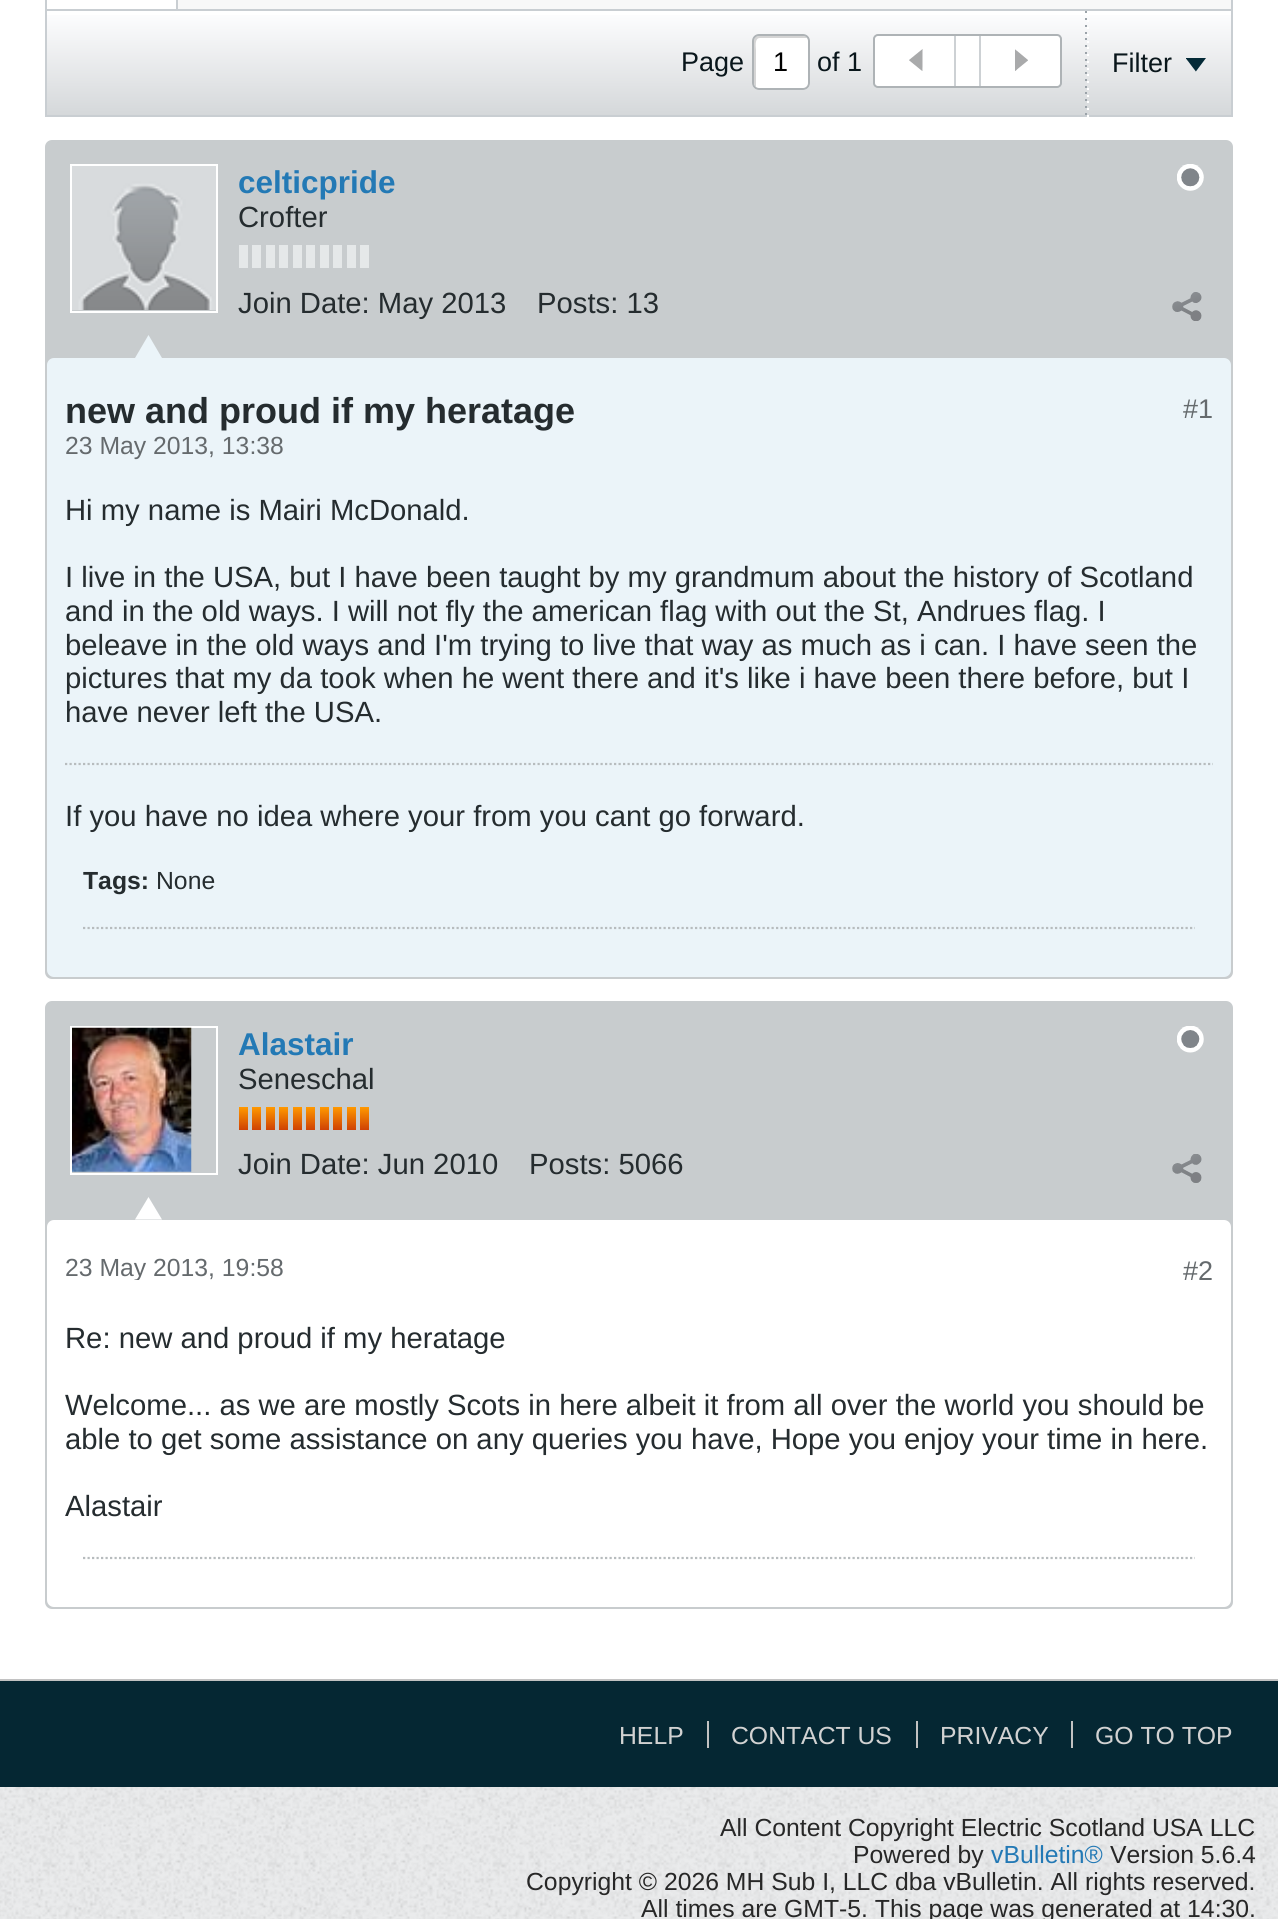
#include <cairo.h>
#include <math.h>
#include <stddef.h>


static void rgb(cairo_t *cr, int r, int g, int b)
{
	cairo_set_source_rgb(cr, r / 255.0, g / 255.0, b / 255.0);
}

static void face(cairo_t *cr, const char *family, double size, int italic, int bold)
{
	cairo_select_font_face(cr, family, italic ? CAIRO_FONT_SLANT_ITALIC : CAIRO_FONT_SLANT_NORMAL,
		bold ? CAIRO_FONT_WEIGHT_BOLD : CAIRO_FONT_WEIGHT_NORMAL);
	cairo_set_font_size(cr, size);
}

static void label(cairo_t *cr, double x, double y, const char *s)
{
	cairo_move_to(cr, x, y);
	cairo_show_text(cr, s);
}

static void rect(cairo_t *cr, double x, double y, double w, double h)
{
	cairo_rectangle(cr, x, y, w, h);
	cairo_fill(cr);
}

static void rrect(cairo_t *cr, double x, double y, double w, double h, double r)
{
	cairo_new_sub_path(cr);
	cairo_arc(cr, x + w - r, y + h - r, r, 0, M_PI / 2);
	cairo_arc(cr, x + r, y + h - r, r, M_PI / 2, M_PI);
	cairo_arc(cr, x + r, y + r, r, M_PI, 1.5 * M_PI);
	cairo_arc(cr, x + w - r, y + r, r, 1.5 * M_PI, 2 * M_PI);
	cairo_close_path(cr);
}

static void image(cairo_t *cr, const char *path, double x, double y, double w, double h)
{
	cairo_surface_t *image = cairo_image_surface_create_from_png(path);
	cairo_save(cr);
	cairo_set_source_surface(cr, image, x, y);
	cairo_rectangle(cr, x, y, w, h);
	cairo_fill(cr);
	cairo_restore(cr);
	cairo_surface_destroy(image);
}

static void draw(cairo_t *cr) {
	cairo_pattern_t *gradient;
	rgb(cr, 234, 235, 236);
	cairo_paint(cr);
	image(cr, "image0.png", 0, 1787, 1278, 132);
	rgb(cr, 255, 255, 255);
	rect(cr, 0, 0, 1278, 1679);
	rgb(cr, 248, 248, 248);
	rect(cr, 178, 0, 1053, 9);
	rgb(cr, 201, 206, 210);
	cairo_set_fill_rule(cr, CAIRO_FILL_RULE_EVEN_ODD);
	cairo_new_path(cr);
	cairo_move_to(cr, 52, -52);
	cairo_line_to(cr, 1226, -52);
	cairo_curve_to(cr, 1230, -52, 1233, -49, 1233, -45);
	cairo_line_to(cr, 1233, 9);
	cairo_line_to(cr, 45, 9);
	cairo_line_to(cr, 45, -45);
	cairo_curve_to(cr, 45, -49, 48, -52, 52, -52);
	cairo_close_path(cr);
	cairo_move_to(cr, 52, -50);
	cairo_line_to(cr, 1226, -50);
	cairo_curve_to(cr, 1229, -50, 1231, -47, 1231, -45);
	cairo_line_to(cr, 1231, 9);
	cairo_line_to(cr, 47, 9);
	cairo_line_to(cr, 47, -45);
	cairo_curve_to(cr, 47, -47, 49, -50, 52, -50);
	cairo_close_path(cr);
	cairo_fill(cr);
	cairo_new_path(cr);
	cairo_move_to(cr, 52, -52);
	cairo_line_to(cr, 171, -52);
	cairo_curve_to(cr, 175, -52, 178, -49, 178, -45);
	cairo_line_to(cr, 178, 9);
	cairo_line_to(cr, 45, 9);
	cairo_line_to(cr, 45, -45);
	cairo_curve_to(cr, 45, -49, 48, -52, 52, -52);
	cairo_close_path(cr);
	cairo_move_to(cr, 52, -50);
	cairo_line_to(cr, 171, -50);
	cairo_curve_to(cr, 173, -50, 176, -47, 176, -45);
	cairo_line_to(cr, 176, 9);
	cairo_line_to(cr, 47, 9);
	cairo_line_to(cr, 47, -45);
	cairo_curve_to(cr, 47, -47, 49, -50, 52, -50);
	cairo_close_path(cr);
	cairo_fill(cr);
	gradient = cairo_pattern_create_linear(639, 11, 639, 115);
	cairo_pattern_add_color_stop_rgba(gradient, 0, 0.996, 0.996, 1, 1);
	cairo_pattern_add_color_stop_rgba(gradient, 1, 0.835, 0.847, 0.855, 1);
	cairo_set_source(cr, gradient);
	cairo_pattern_destroy(gradient);
	rect(cr, 47, 15, 1184, 100);
	cairo_rectangle(cr, 46, 10, 1186, 106);
	rgb(cr, 201, 206, 210);
	cairo_stroke(cr);
	face(cr, "Liberation Sans", 27, 0, 0);
	rgb(cr, 9, 22, 27);
	label(cr, 681, 71, "Page");
	rgb(cr, 255, 255, 255);
	rrect(cr, 752, 34, 58, 56, 7);
	cairo_fill(cr);
	rgb(cr, 213, 213, 213);
	cairo_set_fill_rule(cr, CAIRO_FILL_RULE_WINDING);
	cairo_new_path(cr);
	cairo_move_to(cr, 760, 38);
	cairo_line_to(cr, 807, 38);
	cairo_curve_to(cr, 806, 37, 805, 36, 803, 36);
	cairo_line_to(cr, 759, 36);
	cairo_curve_to(cr, 756, 36, 754, 38, 754, 41);
	cairo_line_to(cr, 754, 83);
	cairo_curve_to(cr, 754, 85, 755, 86, 756, 87);
	cairo_line_to(cr, 756, 50);
	cairo_curve_to(cr, 756, 48, 754, 38, 760, 38);
	cairo_close_path(cr);
	cairo_fill(cr);
	rrect(cr, 753, 35, 56, 54, 6);
	rgb(cr, 174, 179, 182);
	cairo_stroke(cr);
	rgb(cr, 0, 0, 0);
	label(cr, 773, 71, "1");
	rgb(cr, 9, 22, 27);
	label(cr, 817, 71, "of 1");
	rgb(cr, 255, 255, 255);
	rrect(cr, 874, 35, 187, 52, 4);
	cairo_fill_preserve(cr);
	rgb(cr, 174, 179, 182);
	cairo_stroke(cr);
	rgb(cr, 205, 209, 212);
	rect(cr, 954, 36, 2, 50);
	image(cr, "image1.png", 909, 49, 14, 22);
	rect(cr, 979, 36, 2, 50);
	image(cr, "image2.png", 1015, 49, 13, 22);
	rgb(cr, 155, 163, 169);
	rect(cr, 1085, 11, 2, 2);
	rect(cr, 1085, 18, 2, 2);
	rect(cr, 1085, 25, 2, 2);
	rect(cr, 1085, 32, 2, 2);
	rect(cr, 1085, 38, 2, 2);
	rect(cr, 1085, 45, 2, 2);
	rect(cr, 1085, 52, 2, 2);
	rect(cr, 1085, 59, 2, 2);
	rect(cr, 1085, 65, 2, 2);
	rect(cr, 1085, 72, 2, 2);
	rect(cr, 1085, 79, 2, 2);
	rect(cr, 1085, 86, 2, 2);
	rect(cr, 1085, 92, 2, 2);
	rect(cr, 1085, 99, 2, 2);
	rect(cr, 1085, 106, 2, 2);
	rect(cr, 1085, 113, 2, 2);
	rgb(cr, 255, 255, 255);
	rect(cr, 1087, 15, 2, 1);
	rect(cr, 1087, 20, 2, 2);
	rect(cr, 1087, 27, 2, 2);
	rect(cr, 1087, 34, 2, 2);
	rect(cr, 1087, 41, 2, 2);
	rect(cr, 1087, 47, 2, 2);
	rect(cr, 1087, 54, 2, 2);
	rect(cr, 1087, 61, 2, 2);
	rect(cr, 1087, 68, 2, 2);
	rect(cr, 1087, 74, 2, 2);
	rect(cr, 1087, 81, 2, 2);
	rect(cr, 1087, 88, 2, 2);
	rect(cr, 1087, 95, 2, 2);
	rect(cr, 1087, 101, 2, 2);
	rect(cr, 1087, 108, 2, 2);
	rect(cr, 1087, 115, 2, 2);
	rgb(cr, 9, 22, 27);
	label(cr, 1112, 72, "Filter");
	image(cr, "image3.png", 1186, 58, 20, 14);
	rgb(cr, 200, 204, 206);
	rrect(cr, 46, 141, 1186, 837, 6);
	cairo_fill_preserve(cr);
	cairo_stroke(cr);
	cairo_rectangle(cr, 71, 165, 146, 147);
	rgb(cr, 255, 255, 255);
	cairo_stroke(cr);
	image(cr, "image4.png", 72, 166, 144, 144);
	face(cr, "Liberation Sans", 31.5, 0, 1);
	rgb(cr, 35, 121, 181);
	label(cr, 238, 193, "celticpride");
	image(cr, "image5.png", 1177, 164, 27, 27);
	face(cr, "Liberation Sans", 29.25, 0, 0);
	rgb(cr, 37, 44, 47);
	label(cr, 238, 227, "Crofter");
	rgb(cr, 229, 232, 233);
	rect(cr, 239, 245, 9, 23);
	rect(cr, 252, 245, 9, 23);
	rect(cr, 266, 245, 9, 23);
	rect(cr, 279, 245, 9, 23);
	rect(cr, 293, 245, 9, 23);
	rect(cr, 306, 245, 9, 23);
	rect(cr, 320, 245, 9, 23);
	rect(cr, 333, 245, 9, 23);
	rect(cr, 347, 245, 9, 23);
	rect(cr, 360, 245, 9, 23);
	rgb(cr, 37, 44, 47);
	label(cr, 238, 313, "Join Date: May 2013");
	label(cr, 537, 313, "Posts: 13");
	image(cr, "image6.png", 1172, 292, 30, 29);
	rgb(cr, 235, 244, 249);
	rrect(cr, 47, 358, 1184, 619, 7);
	cairo_fill(cr);
	cairo_new_path(cr);
	cairo_move_to(cr, 162, 358);
	cairo_line_to(cr, 135, 358);
	cairo_line_to(cr, 148.5, 335);
	cairo_close_path(cr);
	cairo_fill(cr);
	face(cr, "Liberation Sans", 36, 0, 1);
	rgb(cr, 37, 44, 47);
	label(cr, 65, 423, "new and proud if my heratage");
	face(cr, "Liberation Sans", 24.75, 0, 0);
	rgb(cr, 101, 106, 109);
	label(cr, 65, 454, "23 May 2013, 13:38");
	face(cr, "Liberation Sans", 27, 0, 0);
	label(cr, 1183, 418, "#1");
	face(cr, "Liberation Sans", 29.25, 0, 0);
	rgb(cr, 37, 44, 47);
	label(cr, 65, 520, "Hi my name is Mairi McDonald.");
	label(cr, 65, 587, "I live in the USA, but I have been taught by my grandmum about the history of Scotland");
	label(cr, 65, 621, "and in the old ways. I will not fly the american flag with out the St, Andrues flag. I");
	label(cr, 65, 655, "beleave in the old ways and I'm trying to live that way as much as i can. I have seen the");
	label(cr, 65, 688, "pictures that my da took when he went there and it's like i have been there before, but I");
	label(cr, 65, 722, "have never left the USA.");
	cairo_new_path(cr);
	cairo_move_to(cr, 65, 764);
	cairo_line_to(cr, 1213, 764);
	rgb(cr, 183, 188, 190);
	cairo_set_line_width(cr, 2.2);
	cairo_set_dash(cr, (double[]){2.25, 2.25}, 2, 0);
	cairo_stroke(cr);
	rgb(cr, 37, 44, 47);
	label(cr, 65, 826, "If you have no idea where your from you cant go forward.");
	face(cr, "Liberation Sans", 24.75, 0, 1);
	label(cr, 83, 889, "Tags:");
	face(cr, "Liberation Sans", 24.75, 0, 0);
	label(cr, 156, 889, "None");
	cairo_new_path(cr);
	cairo_move_to(cr, 83, 928);
	cairo_line_to(cr, 1195, 928);
	rgb(cr, 183, 188, 190);
	cairo_stroke(cr);
	rgb(cr, 200, 204, 206);
	rrect(cr, 46, 1002, 1186, 606, 6);
	cairo_fill_preserve(cr);
	cairo_set_line_width(cr, 2);
	cairo_set_dash(cr, NULL, 0, 0);
	cairo_stroke(cr);
	cairo_rectangle(cr, 71, 1027, 146, 147);
	rgb(cr, 255, 255, 255);
	cairo_stroke(cr);
	image(cr, "image7.png", 72, 1027, 120, 145);
	face(cr, "Liberation Sans", 31.5, 0, 1);
	rgb(cr, 35, 121, 181);
	label(cr, 238, 1055, "Alastair");
	image(cr, "image8.png", 1177, 1026, 27, 27);
	face(cr, "Liberation Sans", 29.25, 0, 0);
	rgb(cr, 37, 44, 47);
	label(cr, 238, 1089, "Seneschal");
	gradient = cairo_pattern_create_linear(243, 1107, 243, 1130);
	cairo_pattern_add_color_stop_rgba(gradient, 0, 1, 0.6, 0, 1);
	cairo_pattern_add_color_stop_rgba(gradient, 1, 0.812, 0.255, 0.016, 1);
	cairo_set_source(cr, gradient);
	cairo_pattern_destroy(gradient);
	rect(cr, 239, 1107, 9, 23);
	gradient = cairo_pattern_create_linear(257, 1107, 257, 1130);
	cairo_pattern_add_color_stop_rgba(gradient, 0, 1, 0.6, 0, 1);
	cairo_pattern_add_color_stop_rgba(gradient, 1, 0.812, 0.255, 0.016, 1);
	cairo_set_source(cr, gradient);
	cairo_pattern_destroy(gradient);
	rect(cr, 252, 1107, 9, 23);
	gradient = cairo_pattern_create_linear(270, 1107, 270, 1130);
	cairo_pattern_add_color_stop_rgba(gradient, 0, 1, 0.6, 0, 1);
	cairo_pattern_add_color_stop_rgba(gradient, 1, 0.812, 0.255, 0.016, 1);
	cairo_set_source(cr, gradient);
	cairo_pattern_destroy(gradient);
	rect(cr, 266, 1107, 9, 23);
	gradient = cairo_pattern_create_linear(284, 1107, 284, 1130);
	cairo_pattern_add_color_stop_rgba(gradient, 0, 1, 0.6, 0, 1);
	cairo_pattern_add_color_stop_rgba(gradient, 1, 0.812, 0.255, 0.016, 1);
	cairo_set_source(cr, gradient);
	cairo_pattern_destroy(gradient);
	rect(cr, 279, 1107, 9, 23);
	gradient = cairo_pattern_create_linear(297, 1107, 297, 1130);
	cairo_pattern_add_color_stop_rgba(gradient, 0, 1, 0.6, 0, 1);
	cairo_pattern_add_color_stop_rgba(gradient, 1, 0.812, 0.255, 0.016, 1);
	cairo_set_source(cr, gradient);
	cairo_pattern_destroy(gradient);
	rect(cr, 293, 1107, 9, 23);
	gradient = cairo_pattern_create_linear(311, 1107, 311, 1130);
	cairo_pattern_add_color_stop_rgba(gradient, 0, 1, 0.6, 0, 1);
	cairo_pattern_add_color_stop_rgba(gradient, 1, 0.812, 0.255, 0.016, 1);
	cairo_set_source(cr, gradient);
	cairo_pattern_destroy(gradient);
	rect(cr, 306, 1107, 9, 23);
	gradient = cairo_pattern_create_linear(324, 1107, 324, 1130);
	cairo_pattern_add_color_stop_rgba(gradient, 0, 1, 0.6, 0, 1);
	cairo_pattern_add_color_stop_rgba(gradient, 1, 0.812, 0.255, 0.016, 1);
	cairo_set_source(cr, gradient);
	cairo_pattern_destroy(gradient);
	rect(cr, 320, 1107, 9, 23);
	gradient = cairo_pattern_create_linear(338, 1107, 338, 1130);
	cairo_pattern_add_color_stop_rgba(gradient, 0, 1, 0.6, 0, 1);
	cairo_pattern_add_color_stop_rgba(gradient, 1, 0.812, 0.255, 0.016, 1);
	cairo_set_source(cr, gradient);
	cairo_pattern_destroy(gradient);
	rect(cr, 333, 1107, 9, 23);
	gradient = cairo_pattern_create_linear(351, 1107, 351, 1130);
	cairo_pattern_add_color_stop_rgba(gradient, 0, 1, 0.6, 0, 1);
	cairo_pattern_add_color_stop_rgba(gradient, 1, 0.812, 0.255, 0.016, 1);
	cairo_set_source(cr, gradient);
	cairo_pattern_destroy(gradient);
	rect(cr, 347, 1107, 9, 23);
	gradient = cairo_pattern_create_linear(365, 1107, 365, 1130);
	cairo_pattern_add_color_stop_rgba(gradient, 0, 1, 0.6, 0, 1);
	cairo_pattern_add_color_stop_rgba(gradient, 1, 0.812, 0.255, 0.016, 1);
	cairo_set_source(cr, gradient);
	cairo_pattern_destroy(gradient);
	rect(cr, 360, 1107, 9, 23);
	rgb(cr, 37, 44, 47);
	label(cr, 238, 1174, "Join Date: Jun 2010");
	label(cr, 529, 1174, "Posts: 5066");
	image(cr, "image9.png", 1172, 1154, 30, 29);
	rgb(cr, 255, 255, 255);
	rrect(cr, 47, 1220, 1184, 387, 7);
	cairo_fill(cr);
	cairo_new_path(cr);
	cairo_move_to(cr, 162, 1219.5);
	cairo_line_to(cr, 135, 1219.5);
	cairo_line_to(cr, 148.5, 1197);
	cairo_close_path(cr);
	cairo_fill(cr);
	cairo_save(cr);
	cairo_rectangle(cr, 65, 1253, 1119, 27);
	cairo_clip(cr);
	face(cr, "Liberation Sans", 24.75, 0, 0);
	rgb(cr, 101, 106, 109);
	label(cr, 65, 1276, "23 May 2013, 19:58");
	cairo_restore(cr);
	face(cr, "Liberation Sans", 27, 0, 0);
	rgb(cr, 101, 106, 109);
	label(cr, 1183, 1280, "#2");
	face(cr, "Liberation Sans", 29.25, 0, 0);
	rgb(cr, 37, 44, 47);
	label(cr, 65, 1348, "Re: new and proud if my heratage");
	label(cr, 65, 1415, "Welcome... as we are mostly Scots in here albeit it from all over the world you should be");
	label(cr, 65, 1449, "able to get some assistance on any queries you have, Hope you enjoy your time in here.");
	label(cr, 65, 1516, "Alastair");
	cairo_new_path(cr);
	cairo_move_to(cr, 83, 1558);
	cairo_line_to(cr, 1195, 1558);
	rgb(cr, 183, 188, 190);
	cairo_set_line_width(cr, 2.2);
	cairo_set_dash(cr, (double[]){2.25, 2.25}, 2, 0);
	cairo_stroke(cr);
	rgb(cr, 5, 39, 51);
	rect(cr, 0, 1681, 1278, 106);
	rgb(cr, 194, 194, 194);
	rect(cr, 0, 1679, 1278, 2);
	face(cr, "Liberation Sans", 24.75, 0, 0);
	rgb(cr, 210, 210, 210);
	label(cr, 619, 1744, "HELP");
	label(cr, 731, 1744, "CONTACT US");
	rgb(cr, 194, 194, 194);
	rect(cr, 707, 1721, 2, 27);
	rgb(cr, 210, 210, 210);
	label(cr, 940, 1744, "PRIVACY");
	rgb(cr, 194, 194, 194);
	rect(cr, 916, 1721, 2, 27);
	rgb(cr, 210, 210, 210);
	label(cr, 1095, 1744, "GO TO TOP");
	rgb(cr, 194, 194, 194);
	rect(cr, 1071, 1721, 2, 27);
	rgb(cr, 39, 39, 39);
	label(cr, 720, 1836, "All Content Copyright Electric Scotland USA LLC");
	label(cr, 853, 1863, "Powered by");
	rgb(cr, 35, 121, 181);
	label(cr, 991, 1863, "vBulletin®");
	rgb(cr, 39, 39, 39);
	label(cr, 1110, 1863, "Version 5.6.4");
	label(cr, 526, 1890, "Copyright © 2026 MH Sub I, LLC dba vBulletin. All rights reserved.");
	label(cr, 641, 1917, "All times are GMT-5. This page was generated at 14:30.");
}

int main(void) {
	cairo_surface_t *surface = cairo_image_surface_create(CAIRO_FORMAT_RGB24, 1278, 1919);
	cairo_t *cr = cairo_create(surface);
	cairo_font_options_t *options = cairo_font_options_create();
	cairo_font_options_set_hint_metrics(options, CAIRO_HINT_METRICS_OFF);
	cairo_font_options_set_hint_style(options, CAIRO_HINT_STYLE_NONE);
	cairo_set_font_options(cr, options);
	cairo_set_miter_limit(cr, 4);
	draw(cr);
	cairo_surface_write_to_png(surface, "render.png");
	cairo_font_options_destroy(options);
	cairo_destroy(cr);
	cairo_surface_destroy(surface);
	return 0;
}
